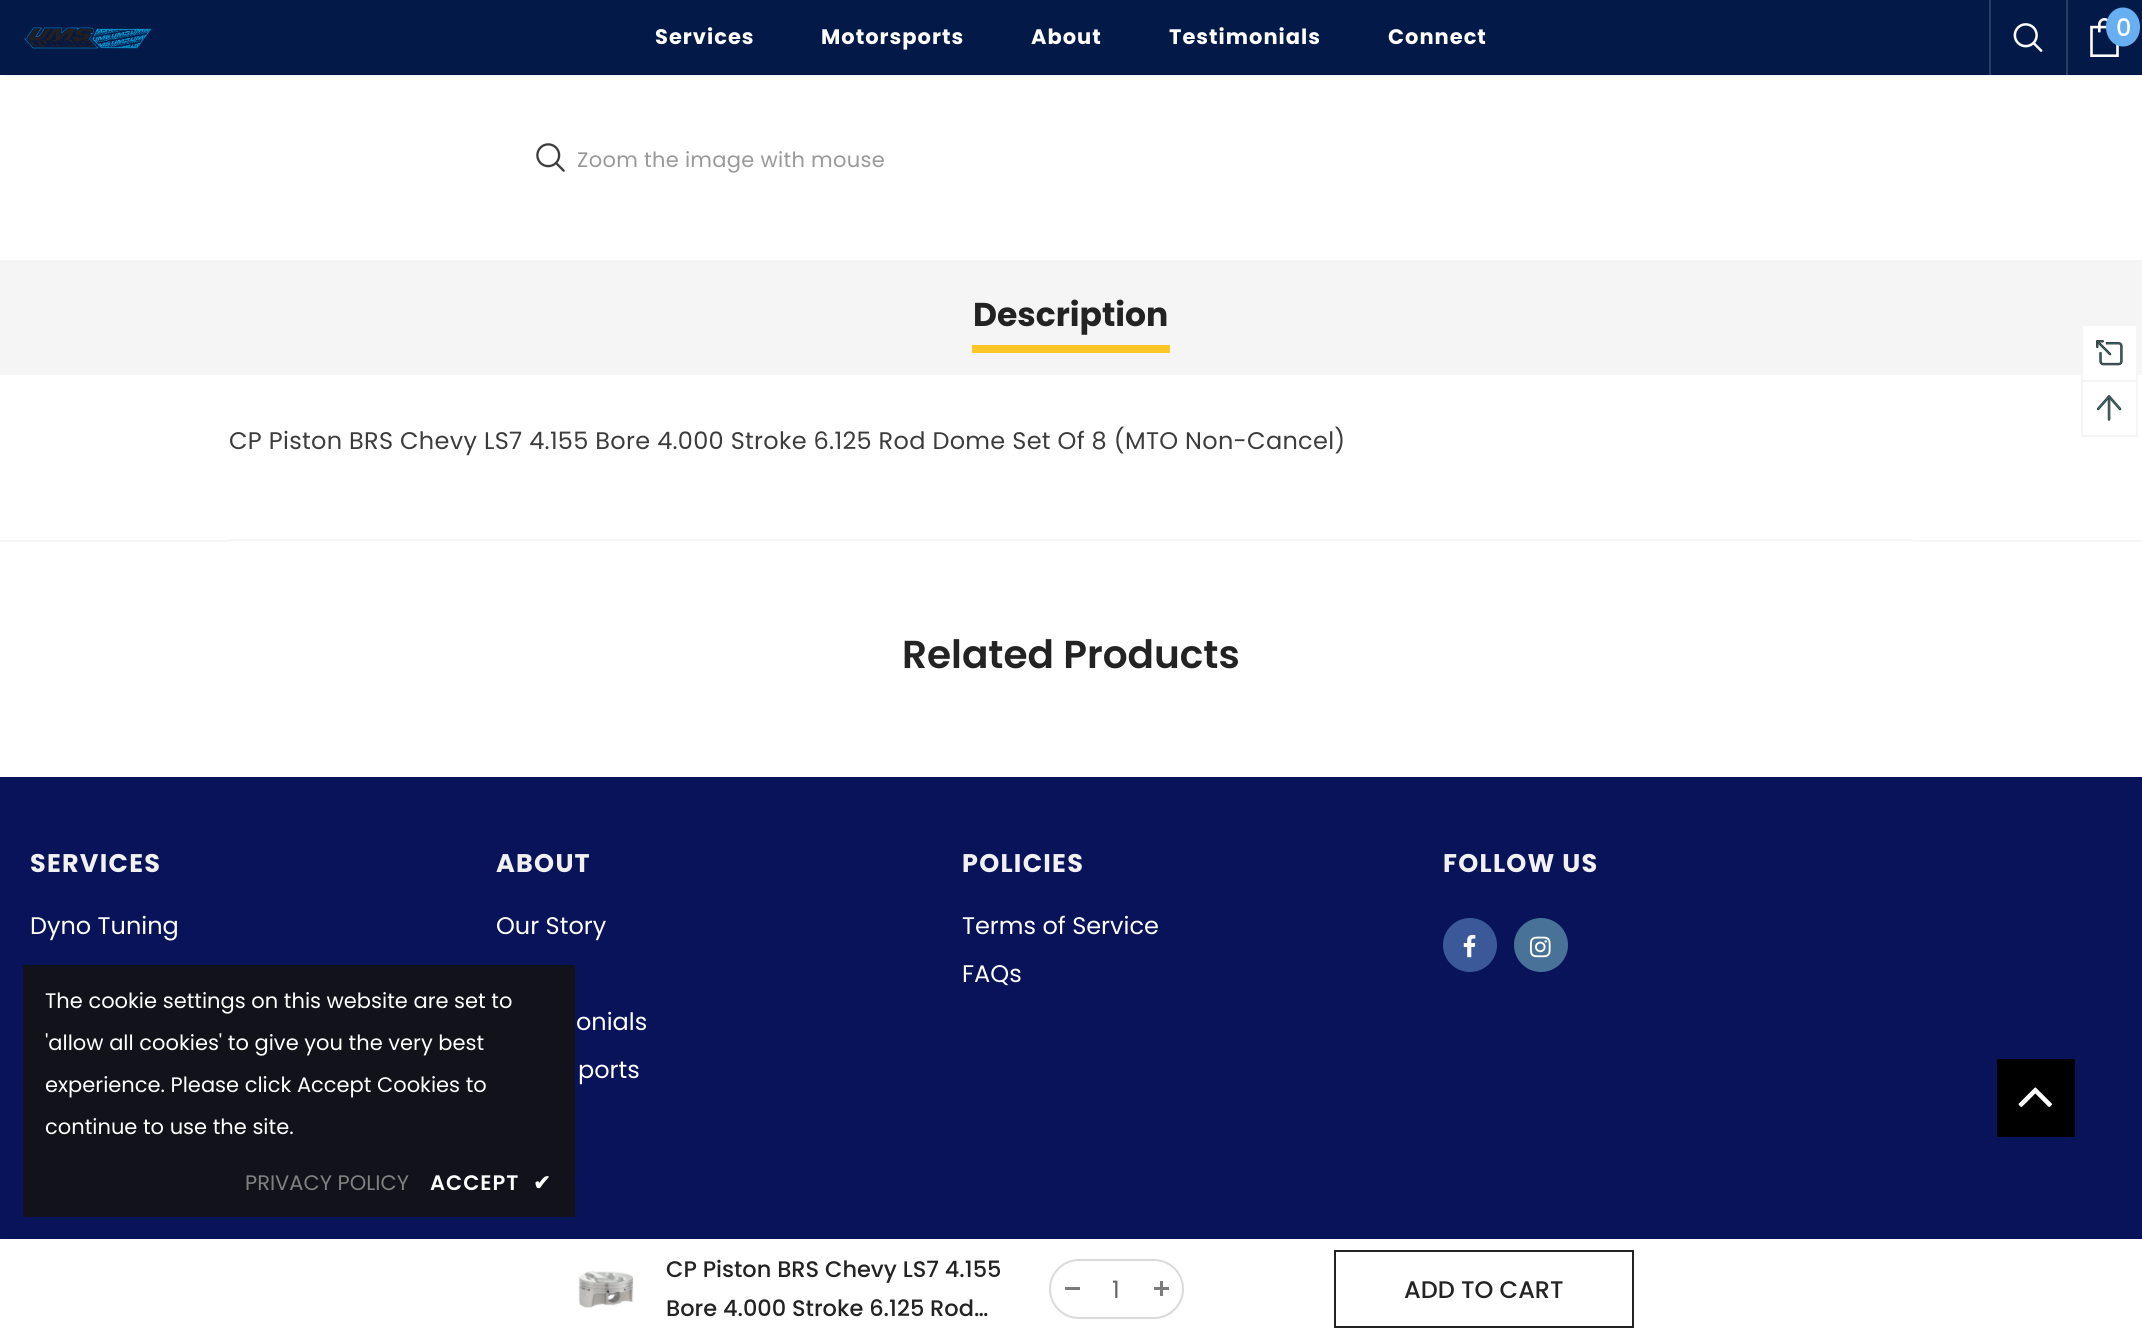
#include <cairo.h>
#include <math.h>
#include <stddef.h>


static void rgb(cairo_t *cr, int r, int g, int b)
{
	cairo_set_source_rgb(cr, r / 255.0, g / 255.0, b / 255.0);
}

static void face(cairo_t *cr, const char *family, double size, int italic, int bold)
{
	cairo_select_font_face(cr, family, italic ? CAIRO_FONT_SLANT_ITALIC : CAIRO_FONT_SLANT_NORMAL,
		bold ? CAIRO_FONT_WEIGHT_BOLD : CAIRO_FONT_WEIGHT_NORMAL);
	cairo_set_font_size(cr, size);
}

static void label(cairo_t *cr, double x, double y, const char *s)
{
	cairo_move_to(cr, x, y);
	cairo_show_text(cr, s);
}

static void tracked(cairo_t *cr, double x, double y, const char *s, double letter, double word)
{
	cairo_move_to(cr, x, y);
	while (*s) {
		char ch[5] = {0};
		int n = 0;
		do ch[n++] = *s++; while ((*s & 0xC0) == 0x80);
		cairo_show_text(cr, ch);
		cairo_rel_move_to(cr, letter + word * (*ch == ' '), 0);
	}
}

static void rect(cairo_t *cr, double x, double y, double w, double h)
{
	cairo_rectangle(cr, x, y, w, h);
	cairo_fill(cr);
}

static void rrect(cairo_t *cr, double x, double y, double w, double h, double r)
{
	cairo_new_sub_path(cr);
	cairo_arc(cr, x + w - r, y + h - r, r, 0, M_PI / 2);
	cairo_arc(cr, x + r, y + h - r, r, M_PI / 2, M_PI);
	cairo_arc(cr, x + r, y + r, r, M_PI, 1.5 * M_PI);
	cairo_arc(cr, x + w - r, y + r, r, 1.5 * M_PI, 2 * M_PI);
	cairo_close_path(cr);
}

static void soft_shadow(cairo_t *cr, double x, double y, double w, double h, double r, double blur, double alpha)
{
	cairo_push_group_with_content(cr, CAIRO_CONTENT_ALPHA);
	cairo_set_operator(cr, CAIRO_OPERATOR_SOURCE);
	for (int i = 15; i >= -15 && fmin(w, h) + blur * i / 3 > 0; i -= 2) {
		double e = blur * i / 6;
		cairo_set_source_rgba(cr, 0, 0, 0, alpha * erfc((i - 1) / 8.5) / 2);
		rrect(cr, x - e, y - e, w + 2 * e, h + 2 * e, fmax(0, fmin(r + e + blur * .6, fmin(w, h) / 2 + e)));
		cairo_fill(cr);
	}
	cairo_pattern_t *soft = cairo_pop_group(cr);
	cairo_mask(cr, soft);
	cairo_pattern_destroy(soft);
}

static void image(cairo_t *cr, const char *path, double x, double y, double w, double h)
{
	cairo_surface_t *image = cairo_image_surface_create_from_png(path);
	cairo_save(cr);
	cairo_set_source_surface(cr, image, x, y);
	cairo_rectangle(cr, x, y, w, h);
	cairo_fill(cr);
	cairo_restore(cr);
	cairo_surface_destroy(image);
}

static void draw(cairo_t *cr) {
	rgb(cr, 255, 255, 255);
	cairo_paint(cr);
	rgb(cr, 0, 0, 0);
	soft_shadow(cr, 5, 9, 2133, 66, 0, 2, 0.1);
	rgb(cr, 3, 25, 72);
	rect(cr, 0, 0, 2142, 75);
	image(cr, "image0.png", 24, 27, 128, 22);
	face(cr, "Poppins", 21, 0, 1);
	rgb(cr, 255, 255, 255);
	tracked(cr, 655, 44, "Services", 1, 0);
	tracked(cr, 821, 44, "Motorsports", 1, 0);
	tracked(cr, 1031, 44, "About", 1, 0);
	tracked(cr, 1169, 44, "Testimonials", 1, 0);
	tracked(cr, 1388, 44, "Connect", 1, 0);
	rgb(cr, 41, 60, 99);
	rect(cr, 1989, 0, 2, 75);
	image(cr, "image1.png", 2013, 23, 30, 29);
	rect(cr, 2066, 0, 2, 75);
	image(cr, "image2.png", 2090, 18, 29, 39);
	rgb(cr, 103, 175, 240);
	cairo_new_path(cr);
	cairo_move_to(cr, 2123, 7.5);
	cairo_curve_to(cr, 2132.5, 7.5, 2140, 16, 2140, 27);
	cairo_curve_to(cr, 2140, 38, 2132.5, 46.5, 2123, 46.5);
	cairo_curve_to(cr, 2113.5, 46.5, 2106, 38, 2106, 27);
	cairo_curve_to(cr, 2106, 16, 2113.5, 7.5, 2123, 7.5);
	cairo_close_path(cr);
	cairo_fill(cr);
	face(cr, "Poppins Medium", 24, 0, 0);
	rgb(cr, 255, 255, 255);
	label(cr, 2116, 36, "0");
	image(cr, "image3.png", 536, 143, 29, 29);
	face(cr, "Poppins", 21, 0, 0);
	rgb(cr, 153, 153, 153);
	tracked(cr, 577, 167, "Zoom the image with mouse", 0.3, 0);
	rgb(cr, 245, 245, 245);
	rect(cr, 0, 260, 2142, 115);
	face(cr, "Poppins", 33, 0, 1);
	rgb(cr, 35, 35, 35);
	label(cr, 973, 326, "Description");
	rgb(cr, 253, 197, 37);
	rect(cr, 972, 345, 198, 8);
	face(cr, "Poppins", 24, 0, 0);
	rgb(cr, 60, 60, 60);
	tracked(cr, 229, 449, "CP Piston BRS Chevy LS7 4.155 Bore 4.000 Stroke 6.125 Rod Dome Set Of 8 (MTO Non-Cancel)", 0.3, 0);
	rgb(cr, 246, 246, 246);
	rect(cr, 230, 539, 1683, 2);
	rect(cr, 0, 540, 230, 2);
	rect(cr, 1913, 540, 229, 2);
	face(cr, "Poppins SemiBold", 39, 0, 0);
	rgb(cr, 35, 35, 35);
	label(cr, 902, 668, "Related Products");
	rgb(cr, 8, 19, 89);
	rect(cr, 0, 777, 2142, 462);
	face(cr, "Poppins", 25.5, 0, 1);
	rgb(cr, 242, 241, 241);
	tracked(cr, 30, 872, "SERVICES", 1.25, 0);
	face(cr, "Poppins", 24, 0, 0);
	rgb(cr, 255, 255, 255);
	label(cr, 30, 934, "Dyno Tuning");
	face(cr, "Poppins", 25.5, 0, 1);
	rgb(cr, 242, 241, 241);
	tracked(cr, 496, 872, "ABOUT", 1.25, 0);
	face(cr, "Poppins", 24, 0, 0);
	rgb(cr, 255, 255, 255);
	label(cr, 496, 934, "Our Story");
	label(cr, 576, 1030, "onials");
	label(cr, 578, 1078, "ports");
	face(cr, "Poppins", 25.5, 0, 1);
	rgb(cr, 242, 241, 241);
	tracked(cr, 962, 872, "POLICIES", 1.25, 0);
	face(cr, "Poppins", 24, 0, 0);
	rgb(cr, 255, 255, 255);
	label(cr, 962, 934, "Terms of Service");
	label(cr, 962, 982, "FAQs");
	face(cr, "Poppins", 25.5, 0, 1);
	rgb(cr, 242, 241, 241);
	tracked(cr, 1443, 872, "FOLLOW US", 1.25, 0);
	rgb(cr, 59, 89, 152);
	cairo_new_path(cr);
	cairo_arc(cr, 1470, 945, 27, 0, 2 * M_PI);
	cairo_fill(cr);
	image(cr, "image4.png", 1463, 934, 13, 24);
	rgb(cr, 73, 114, 153);
	cairo_arc(cr, 1541, 945, 27, 0, 2 * M_PI);
	cairo_fill(cr);
	image(cr, "image5.png", 1530, 936, 21, 22);
	cairo_set_source_rgba(cr, 0.078, 0.078, 0.078, 0.9);
	rect(cr, 23, 965, 552, 252);
	face(cr, "Poppins", 21, 0, 0);
	rgb(cr, 255, 255, 255);
	label(cr, 45, 1008, "The cookie settings on this website are set to");
	label(cr, 45, 1050, "'allow all cookies' to give you the very best");
	label(cr, 45, 1092, "experience. Please click Accept Cookies to");
	label(cr, 45, 1134, "continue to use the site.");
	rgb(cr, 129, 129, 129);
	label(cr, 245, 1190, "PRIVACY POLICY");
	face(cr, "Poppins SemiBold", 21, 0, 0);
	rgb(cr, 255, 255, 255);
	tracked(cr, 430, 1190, "ACCEPT", 1, 0);
	face(cr, "DejaVu Sans", 21, 0, 1);
	tracked(cr, 533, 1190, "✔", 1, 0);
	rgb(cr, 0, 0, 0);
	soft_shadow(cr, 5, 1239, 2133, 90, 0, 2, 0.1);
	rgb(cr, 255, 255, 255);
	rect(cr, 2, 1239, 2139, 93);
	image(cr, "image6.png", 578, 1271, 56, 37);
	face(cr, "Poppins Medium", 22.5, 0, 0);
	rgb(cr, 35, 35, 35);
	label(cr, 666, 1277, "CP Piston BRS Chevy LS7 4.155");
	label(cr, 666, 1316, "Bore 4.000 Stroke 6.125 Rod…");
	rrect(cr, 1050, 1260, 133, 58, 29);
	rgb(cr, 218, 218, 218);
	cairo_stroke(cr);
	rgb(cr, 123, 123, 123);
	rect(cr, 1065, 1287, 15, 3);
	face(cr, "Poppins", 24, 0, 0);
	rgb(cr, 100, 100, 100);
	label(cr, 1112, 1298, "1");
	rgb(cr, 123, 123, 123);
	rect(cr, 1154, 1287, 15, 3);
	rect(cr, 1160, 1281, 3, 15);
	cairo_rectangle(cr, 1335, 1251, 298, 76);
	rgb(cr, 35, 35, 35);
	cairo_stroke(cr);
	face(cr, "Poppins Medium", 24, 0, 0);
	label(cr, 1404, 1298, "ADD TO CART");
	rgb(cr, 0, 0, 0);
	rect(cr, 1997, 1059, 78, 78);
	image(cr, "image7.png", 2018, 1087, 34, 20);
	rgb(cr, 255, 255, 255);
	rect(cr, 2083, 326, 53, 49);
	rgb(cr, 245, 245, 246);
	rect(cr, 2136, 375, 2, 5);
	rect(cr, 2081, 375, 2, 5);
	image(cr, "image8.png", 2096, 340, 27, 26);
	cairo_rectangle(cr, 2082, 381, 55, 55);
	cairo_stroke(cr);
	image(cr, "image9.png", 2096, 395, 26, 26);
}

int main(void) {
	cairo_surface_t *surface = cairo_image_surface_create(CAIRO_FORMAT_RGB24, 2142, 1338);
	cairo_t *cr = cairo_create(surface);
	cairo_font_options_t *options = cairo_font_options_create();
	cairo_font_options_set_hint_metrics(options, CAIRO_HINT_METRICS_OFF);
	cairo_font_options_set_hint_style(options, CAIRO_HINT_STYLE_NONE);
	cairo_set_font_options(cr, options);
	cairo_set_miter_limit(cr, 4);
	draw(cr);
	cairo_surface_write_to_png(surface, "render.png");
	cairo_font_options_destroy(options);
	cairo_destroy(cr);
	cairo_surface_destroy(surface);
	return 0;
}
